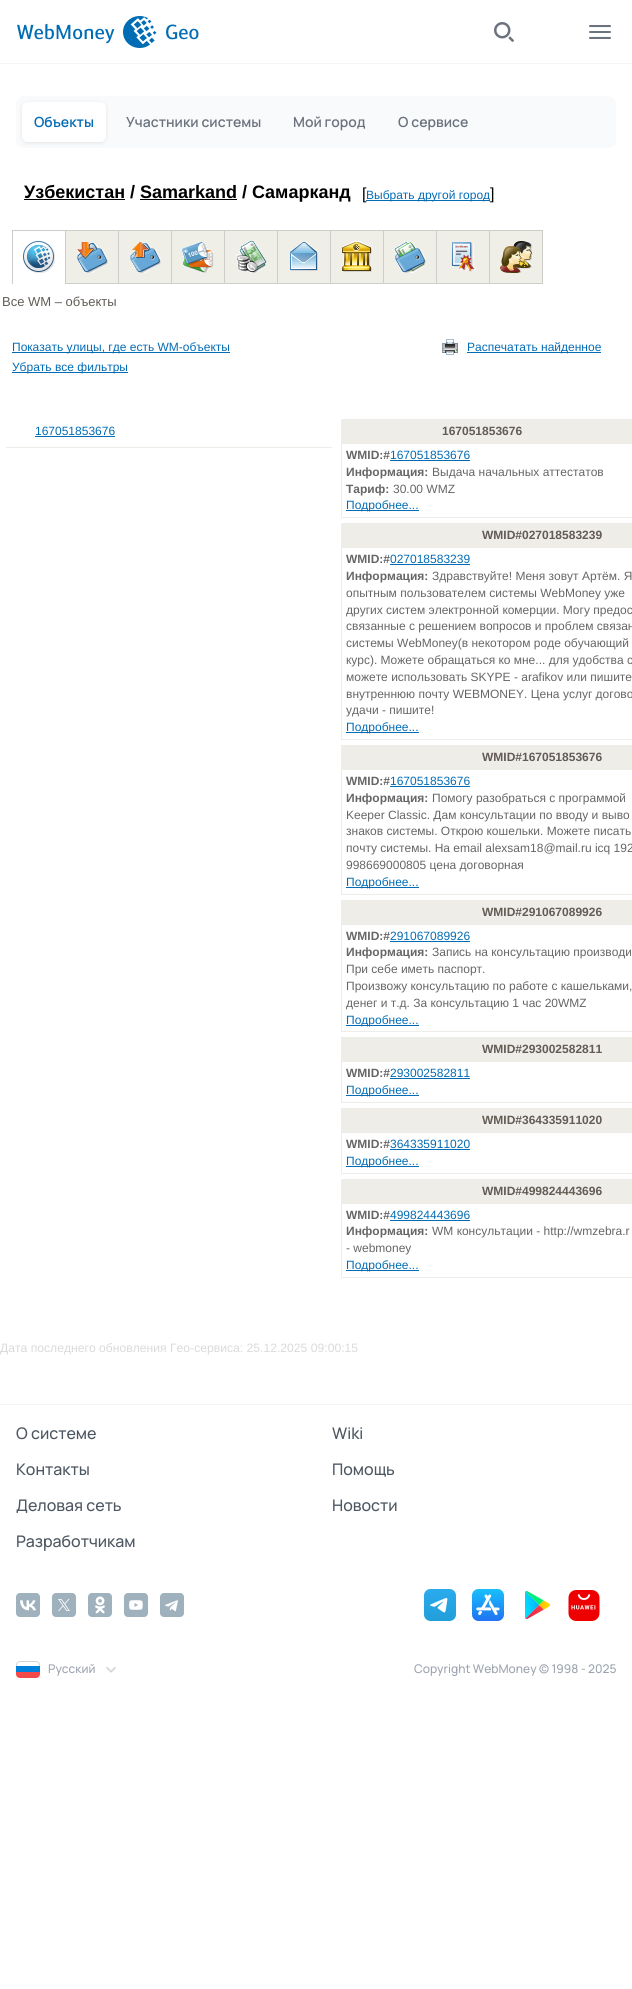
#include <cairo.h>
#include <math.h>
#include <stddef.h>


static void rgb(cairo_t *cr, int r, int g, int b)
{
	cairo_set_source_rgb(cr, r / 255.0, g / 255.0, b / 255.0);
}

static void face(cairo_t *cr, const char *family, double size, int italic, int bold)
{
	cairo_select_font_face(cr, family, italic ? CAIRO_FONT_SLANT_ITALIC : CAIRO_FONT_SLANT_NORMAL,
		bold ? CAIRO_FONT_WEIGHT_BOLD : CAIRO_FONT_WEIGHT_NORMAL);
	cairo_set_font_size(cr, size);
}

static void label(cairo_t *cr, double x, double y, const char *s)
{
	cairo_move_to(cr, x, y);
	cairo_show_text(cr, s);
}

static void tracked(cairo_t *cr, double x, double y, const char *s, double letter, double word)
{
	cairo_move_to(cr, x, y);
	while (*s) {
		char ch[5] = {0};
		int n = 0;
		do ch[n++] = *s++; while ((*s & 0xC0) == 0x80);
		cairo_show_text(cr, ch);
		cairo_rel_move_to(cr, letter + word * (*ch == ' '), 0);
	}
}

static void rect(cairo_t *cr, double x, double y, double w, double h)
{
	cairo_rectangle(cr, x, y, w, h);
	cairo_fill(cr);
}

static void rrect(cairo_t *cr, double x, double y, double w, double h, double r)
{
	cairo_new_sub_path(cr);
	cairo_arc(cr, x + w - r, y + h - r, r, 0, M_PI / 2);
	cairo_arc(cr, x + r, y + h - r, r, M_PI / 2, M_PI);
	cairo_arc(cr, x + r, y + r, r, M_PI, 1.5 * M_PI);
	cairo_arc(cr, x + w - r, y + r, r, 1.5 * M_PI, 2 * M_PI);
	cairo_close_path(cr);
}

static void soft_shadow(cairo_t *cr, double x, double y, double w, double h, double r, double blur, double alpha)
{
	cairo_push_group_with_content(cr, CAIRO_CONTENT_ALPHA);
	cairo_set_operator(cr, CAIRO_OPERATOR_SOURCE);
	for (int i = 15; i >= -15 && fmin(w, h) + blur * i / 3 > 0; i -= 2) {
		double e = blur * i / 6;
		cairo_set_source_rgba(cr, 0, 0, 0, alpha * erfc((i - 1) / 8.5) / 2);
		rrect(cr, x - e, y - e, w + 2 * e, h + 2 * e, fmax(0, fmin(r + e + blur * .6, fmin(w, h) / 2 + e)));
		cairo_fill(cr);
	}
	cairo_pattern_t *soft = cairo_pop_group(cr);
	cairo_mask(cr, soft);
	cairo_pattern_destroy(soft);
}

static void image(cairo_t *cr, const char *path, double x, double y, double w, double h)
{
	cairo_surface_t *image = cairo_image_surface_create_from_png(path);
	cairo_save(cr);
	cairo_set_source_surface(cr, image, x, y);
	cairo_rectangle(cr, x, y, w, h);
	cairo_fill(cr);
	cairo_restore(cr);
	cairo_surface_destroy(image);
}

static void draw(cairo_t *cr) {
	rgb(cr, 255, 255, 255);
	cairo_paint(cr);
	rgb(cr, 243, 244, 246);
	rect(cr, 0, 63, 632, 1);
	image(cr, "image0.png", 17, 16, 140, 32);
	face(cr, "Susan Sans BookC", 20, 0, 0);
	rgb(cr, 3, 108, 181);
	tracked(cr, 165, 39, "Geo", -0.5, 0);
	image(cr, "image1.png", 494, 22, 20, 20);
	image(cr, "image2.png", 589, 25, 22, 14);
	rgb(cr, 249, 250, 251);
	rrect(cr, 16, 96, 600, 52, 8);
	cairo_fill(cr);
	rgb(cr, 16, 24, 40);
	soft_shadow(cr, 22, 103, 84, 40, 6, 2, 0.1);
	rgb(cr, 255, 255, 255);
	rrect(cr, 22, 102, 84, 40, 6);
	cairo_fill(cr);
	face(cr, "Manrope SemiBold", 14, 0, 0);
	rgb(cr, 3, 108, 181);
	label(cr, 34, 127, "Объекты");
	rgb(cr, 108, 115, 127);
	label(cr, 126, 127, "Участники системы");
	label(cr, 293, 127, "Мой город");
	label(cr, 398, 127, "О сервисе");
	rgb(cr, 0, 0, 0);
	rect(cr, 24, 199, 101, 1);
	face(cr, "Liberation Sans", 18, 0, 1);
	label(cr, 24, 198, "Узбекистан / Samarkand / Самарканд");
	rect(cr, 140, 199, 97, 1);
	face(cr, "Liberation Sans", 16, 0, 0);
	label(cr, 362, 199, "[");
	rgb(cr, 3, 108, 181);
	rect(cr, 366, 200, 124, 1);
	face(cr, "Liberation Sans", 12, 0, 0);
	label(cr, 366, 199, "Выбрать другой город");
	face(cr, "Liberation Sans", 16, 0, 0);
	rgb(cr, 0, 0, 0);
	label(cr, 490, 199, "]");
	rgb(cr, 205, 205, 201);
	rect(cr, 12, 230, 1, 54);
	rgb(cr, 239, 239, 231);
	rect(cr, 490, 231, 52, 52);
	rgb(cr, 205, 205, 201);
	rect(cr, 12, 230, 531, 1);
	rect(cr, 542, 230, 1, 54);
	rect(cr, 489, 283, 54, 1);
	image(cr, "image3.png", 500, 241, 32, 32);
	rect(cr, 489, 230, 1, 54);
	rect(cr, 436, 283, 54, 1);
	rect(cr, 436, 230, 1, 54);
	rect(cr, 383, 283, 54, 1);
	rect(cr, 383, 230, 1, 54);
	rect(cr, 330, 283, 54, 1);
	rect(cr, 330, 230, 1, 54);
	rect(cr, 277, 283, 54, 1);
	rect(cr, 277, 230, 1, 54);
	rect(cr, 224, 283, 54, 1);
	rect(cr, 224, 230, 1, 54);
	rect(cr, 171, 283, 54, 1);
	rect(cr, 171, 230, 1, 54);
	rect(cr, 118, 283, 54, 1);
	rect(cr, 118, 230, 1, 54);
	rect(cr, 65, 283, 54, 1);
	rect(cr, 65, 230, 1, 54);
	image(cr, "image4.png", 23, 241, 32, 32);
	rgb(cr, 239, 239, 231);
	rect(cr, 66, 231, 52, 52);
	image(cr, "image5.png", 77, 242, 31, 31);
	rect(cr, 119, 231, 52, 52);
	image(cr, "image6.png", 130, 242, 31, 31);
	rect(cr, 172, 231, 52, 52);
	image(cr, "image7.png", 182, 242, 32, 31);
	rect(cr, 225, 231, 52, 52);
	image(cr, "image8.png", 236, 241, 31, 32);
	rect(cr, 278, 231, 52, 52);
	image(cr, "image9.png", 290, 242, 28, 29);
	rect(cr, 331, 231, 52, 52);
	image(cr, "image10.png", 342, 241, 30, 31);
	rect(cr, 384, 231, 52, 52);
	image(cr, "image11.png", 394, 242, 32, 31);
	rect(cr, 437, 231, 52, 52);
	image(cr, "image12.png", 451, 242, 25, 31);
	face(cr, "Liberation Sans", 13, 0, 0);
	rgb(cr, 98, 92, 85);
	label(cr, 2, 306, "Все WM – объекты");
	rgb(cr, 3, 108, 181);
	rect(cr, 12, 352, 218, 1);
	face(cr, "Liberation Sans", 12, 0, 0);
	label(cr, 12, 351, "Показать улицы, где есть WM-объекты");
	rect(cr, 12, 372, 116, 1);
	label(cr, 12, 371, "Убрать все фильтры");
	image(cr, "image13.png", 442, 339, 16, 16);
	rect(cr, 467, 352, 134, 1);
	label(cr, 467, 351, "Распечатать найденное");
	rgb(cr, 239, 237, 232);
	rect(cr, 6, 447, 326, 1);
	rgb(cr, 3, 108, 181);
	label(cr, 35, 435, "167051853676");
	rect(cr, 35, 436, 80, 1);
	cairo_rectangle(cr, 341.5, 419.5, 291, 98);
	rgb(cr, 239, 237, 232);
	cairo_set_line_width(cr, 1);
	cairo_stroke(cr);
	rect(cr, 342, 420, 290, 24);
	face(cr, "Liberation Sans", 12, 0, 1);
	rgb(cr, 98, 92, 85);
	label(cr, 442, 435, "167051853676");
	rgb(cr, 102, 102, 102);
	label(cr, 346, 459, "WMID:#");
	face(cr, "Liberation Sans", 12, 0, 0);
	rgb(cr, 3, 108, 181);
	label(cr, 390, 459, "167051853676");
	rect(cr, 390, 460, 80, 1);
	face(cr, "Liberation Sans", 12, 0, 1);
	rgb(cr, 102, 102, 102);
	label(cr, 346, 476, "Информация:");
	face(cr, "Liberation Sans", 12, 0, 0);
	label(cr, 432, 476, "Выдача начальных аттестатов");
	face(cr, "Liberation Sans", 12, 0, 1);
	label(cr, 346, 493, "Тариф:");
	face(cr, "Liberation Sans", 12, 0, 0);
	label(cr, 393, 493, "30.00 WMZ");
	rgb(cr, 3, 108, 181);
	rect(cr, 346, 510, 73, 1);
	label(cr, 346, 509, "Подробнее...");
	cairo_rectangle(cr, 341.5, 523.5, 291, 216);
	rgb(cr, 239, 237, 232);
	cairo_stroke(cr);
	rect(cr, 342, 524, 290, 24);
	face(cr, "Liberation Sans", 12, 0, 1);
	rgb(cr, 98, 92, 85);
	label(cr, 482, 539, "WMID#027018583239");
	rgb(cr, 102, 102, 102);
	label(cr, 346, 563, "WMID:#");
	face(cr, "Liberation Sans", 12, 0, 0);
	rgb(cr, 3, 108, 181);
	label(cr, 390, 563, "027018583239");
	rect(cr, 390, 564, 80, 1);
	face(cr, "Liberation Sans", 12, 0, 1);
	rgb(cr, 102, 102, 102);
	label(cr, 346, 580, "Информация:");
	face(cr, "Liberation Sans", 12, 0, 0);
	label(cr, 432, 580, "Здравствуйте! Меня зовут Артём. Я");
	label(cr, 346, 597, "опытным пользователем системы WebMoney уже");
	label(cr, 346, 614, "других систем электронной комерции. Могу предос");
	label(cr, 346, 630, "связанные с решением вопросов и проблем связан");
	label(cr, 346, 647, "системы WebMoney(в некотором роде обучающий");
	label(cr, 346, 664, "курс). Можете обращаться ко мне... для удобства с");
	label(cr, 346, 681, "можете использовать SKYPE - arafikov или пишите");
	label(cr, 346, 698, "внутреннюю почту WEBMONEY. Цена услуг догово");
	label(cr, 346, 714, "удачи - пишите!");
	rgb(cr, 3, 108, 181);
	rect(cr, 346, 732, 73, 1);
	label(cr, 346, 731, "Подробнее...");
	cairo_rectangle(cr, 341.5, 745.5, 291, 149);
	rgb(cr, 239, 237, 232);
	cairo_stroke(cr);
	rect(cr, 342, 746, 290, 24);
	face(cr, "Liberation Sans", 12, 0, 1);
	rgb(cr, 98, 92, 85);
	label(cr, 482, 761, "WMID#167051853676");
	rgb(cr, 102, 102, 102);
	label(cr, 346, 785, "WMID:#");
	face(cr, "Liberation Sans", 12, 0, 0);
	rgb(cr, 3, 108, 181);
	label(cr, 390, 785, "167051853676");
	rect(cr, 390, 786, 80, 1);
	face(cr, "Liberation Sans", 12, 0, 1);
	rgb(cr, 102, 102, 102);
	label(cr, 346, 802, "Информация:");
	face(cr, "Liberation Sans", 12, 0, 0);
	label(cr, 432, 802, "Помогу разобраться с программой");
	label(cr, 346, 819, "Keeper Classic. Дам консультации по вводу и выво");
	label(cr, 346, 835, "знаков системы. Открою кошельки. Можете писать");
	label(cr, 346, 852, "почту системы. На email alexsam18@mail.ru icq 192");
	label(cr, 346, 869, "998669000805 цена договорная");
	rgb(cr, 3, 108, 181);
	rect(cr, 346, 887, 73, 1);
	label(cr, 346, 886, "Подробнее...");
	cairo_rectangle(cr, 341.5, 900.5, 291, 131);
	rgb(cr, 239, 237, 232);
	cairo_stroke(cr);
	rect(cr, 342, 901, 290, 24);
	face(cr, "Liberation Sans", 12, 0, 1);
	rgb(cr, 98, 92, 85);
	label(cr, 482, 916, "WMID#291067089926");
	rgb(cr, 102, 102, 102);
	label(cr, 346, 940, "WMID:#");
	face(cr, "Liberation Sans", 12, 0, 0);
	rgb(cr, 3, 108, 181);
	label(cr, 390, 940, "291067089926");
	rect(cr, 390, 941, 80, 1);
	face(cr, "Liberation Sans", 12, 0, 1);
	rgb(cr, 102, 102, 102);
	label(cr, 346, 956, "Информация:");
	face(cr, "Liberation Sans", 12, 0, 0);
	label(cr, 432, 956, "Запись на консультацию производи");
	label(cr, 346, 973, "При себе иметь паспорт.");
	label(cr, 346, 990, "Произвожу консультацию по работе с кашельками,");
	label(cr, 346, 1007, "денег и т.д. За консультацию 1 час 20WMZ");
	rgb(cr, 3, 108, 181);
	rect(cr, 346, 1025, 73, 1);
	label(cr, 346, 1024, "Подробнее...");
	cairo_rectangle(cr, 341.5, 1037.5, 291, 65);
	rgb(cr, 239, 237, 232);
	cairo_stroke(cr);
	rect(cr, 342, 1038, 290, 24);
	face(cr, "Liberation Sans", 12, 0, 1);
	rgb(cr, 98, 92, 85);
	label(cr, 482, 1053, "WMID#293002582811");
	rgb(cr, 102, 102, 102);
	label(cr, 346, 1077, "WMID:#");
	face(cr, "Liberation Sans", 12, 0, 0);
	rgb(cr, 3, 108, 181);
	label(cr, 390, 1077, "293002582811");
	rect(cr, 390, 1078, 80, 1);
	rect(cr, 346, 1095, 73, 1);
	label(cr, 346, 1094, "Подробнее...");
	cairo_rectangle(cr, 341.5, 1108.5, 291, 65);
	rgb(cr, 239, 237, 232);
	cairo_stroke(cr);
	rect(cr, 342, 1109, 290, 24);
	face(cr, "Liberation Sans", 12, 0, 1);
	rgb(cr, 98, 92, 85);
	label(cr, 482, 1124, "WMID#364335911020");
	rgb(cr, 102, 102, 102);
	label(cr, 346, 1148, "WMID:#");
	face(cr, "Liberation Sans", 12, 0, 0);
	rgb(cr, 3, 108, 181);
	label(cr, 390, 1148, "364335911020");
	rect(cr, 390, 1149, 80, 1);
	rect(cr, 346, 1166, 73, 1);
	label(cr, 346, 1165, "Подробнее...");
	cairo_rectangle(cr, 341.5, 1179.5, 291, 98);
	rgb(cr, 239, 237, 232);
	cairo_stroke(cr);
	rect(cr, 342, 1180, 290, 24);
	face(cr, "Liberation Sans", 12, 0, 1);
	rgb(cr, 98, 92, 85);
	label(cr, 482, 1195, "WMID#499824443696");
	rgb(cr, 102, 102, 102);
	label(cr, 346, 1219, "WMID:#");
	face(cr, "Liberation Sans", 12, 0, 0);
	rgb(cr, 3, 108, 181);
	label(cr, 390, 1219, "499824443696");
	rect(cr, 390, 1220, 80, 1);
	face(cr, "Liberation Sans", 12, 0, 1);
	rgb(cr, 102, 102, 102);
	label(cr, 346, 1235, "Информация:");
	face(cr, "Liberation Sans", 12, 0, 0);
	label(cr, 432, 1235, "WM консультации - http://wmzebra.r");
	label(cr, 346, 1252, "- webmoney");
	rgb(cr, 3, 108, 181);
	rect(cr, 346, 1270, 73, 1);
	label(cr, 346, 1269, "Подробнее...");
	face(cr, "Liberation Sans", 12.15, 0, 0);
	rgb(cr, 218, 218, 218);
	label(cr, 0, 1352, "Дата последнего обновления Гео-сервиса: 25.12.2025 09:00:15");
	rgb(cr, 243, 244, 246);
	rect(cr, 0, 1404, 632, 1);
	face(cr, "Manrope Medium", 16, 0, 0);
	rgb(cr, 77, 87, 97);
	label(cr, 16, 1439, "О системе");
	label(cr, 332, 1439, "Wiki");
	label(cr, 16, 1475, "Контакты");
	label(cr, 332, 1475, "Помощь");
	label(cr, 16, 1511, "Деловая сеть");
	label(cr, 332, 1511, "Новости");
	label(cr, 16, 1547, "Разработчикам");
	rgb(cr, 159, 177, 189);
	rrect(cr, 16, 1593, 24, 24, 4);
	cairo_fill(cr);
	image(cr, "image14.png", 20, 1600, 16, 11);
	rrect(cr, 52, 1593, 24, 24, 4);
	cairo_fill(cr);
	image(cr, "image15.png", 58, 1599, 12, 12);
	rrect(cr, 88, 1593, 24, 24, 4);
	cairo_fill(cr);
	image(cr, "image16.png", 95, 1596, 10, 18);
	rrect(cr, 124, 1593, 24, 24, 4);
	cairo_fill(cr);
	image(cr, "image17.png", 129, 1600, 14, 10);
	rrect(cr, 160, 1593, 24, 24, 4);
	cairo_fill(cr);
	image(cr, "image18.png", 165, 1600, 13, 12);
	image(cr, "image19.png", 424, 1589, 32, 32);
	image(cr, "image20.png", 472, 1589, 32, 32);
	image(cr, "image21.png", 525, 1591, 26, 28);
	image(cr, "image22.png", 568, 1590, 32, 31);
	image(cr, "image23.png", 16, 1661, 24, 17);
	face(cr, "Manrope Medium", 12, 0, 0);
	rgb(cr, 157, 164, 174);
	label(cr, 48, 1673, "Русский");
	image(cr, "image24.png", 106, 1667, 10, 6);
	label(cr, 414, 1673, "Copyright WebMoney © 1998 - 2025");
}

int main(void) {
	cairo_surface_t *surface = cairo_image_surface_create(CAIRO_FORMAT_RGB24, 632, 1989);
	cairo_t *cr = cairo_create(surface);
	cairo_font_options_t *options = cairo_font_options_create();
	cairo_font_options_set_hint_metrics(options, CAIRO_HINT_METRICS_OFF);
	cairo_font_options_set_hint_style(options, CAIRO_HINT_STYLE_NONE);
	cairo_set_font_options(cr, options);
	cairo_set_miter_limit(cr, 4);
	draw(cr);
	cairo_surface_write_to_png(surface, "render.png");
	cairo_font_options_destroy(options);
	cairo_destroy(cr);
	cairo_surface_destroy(surface);
	return 0;
}
